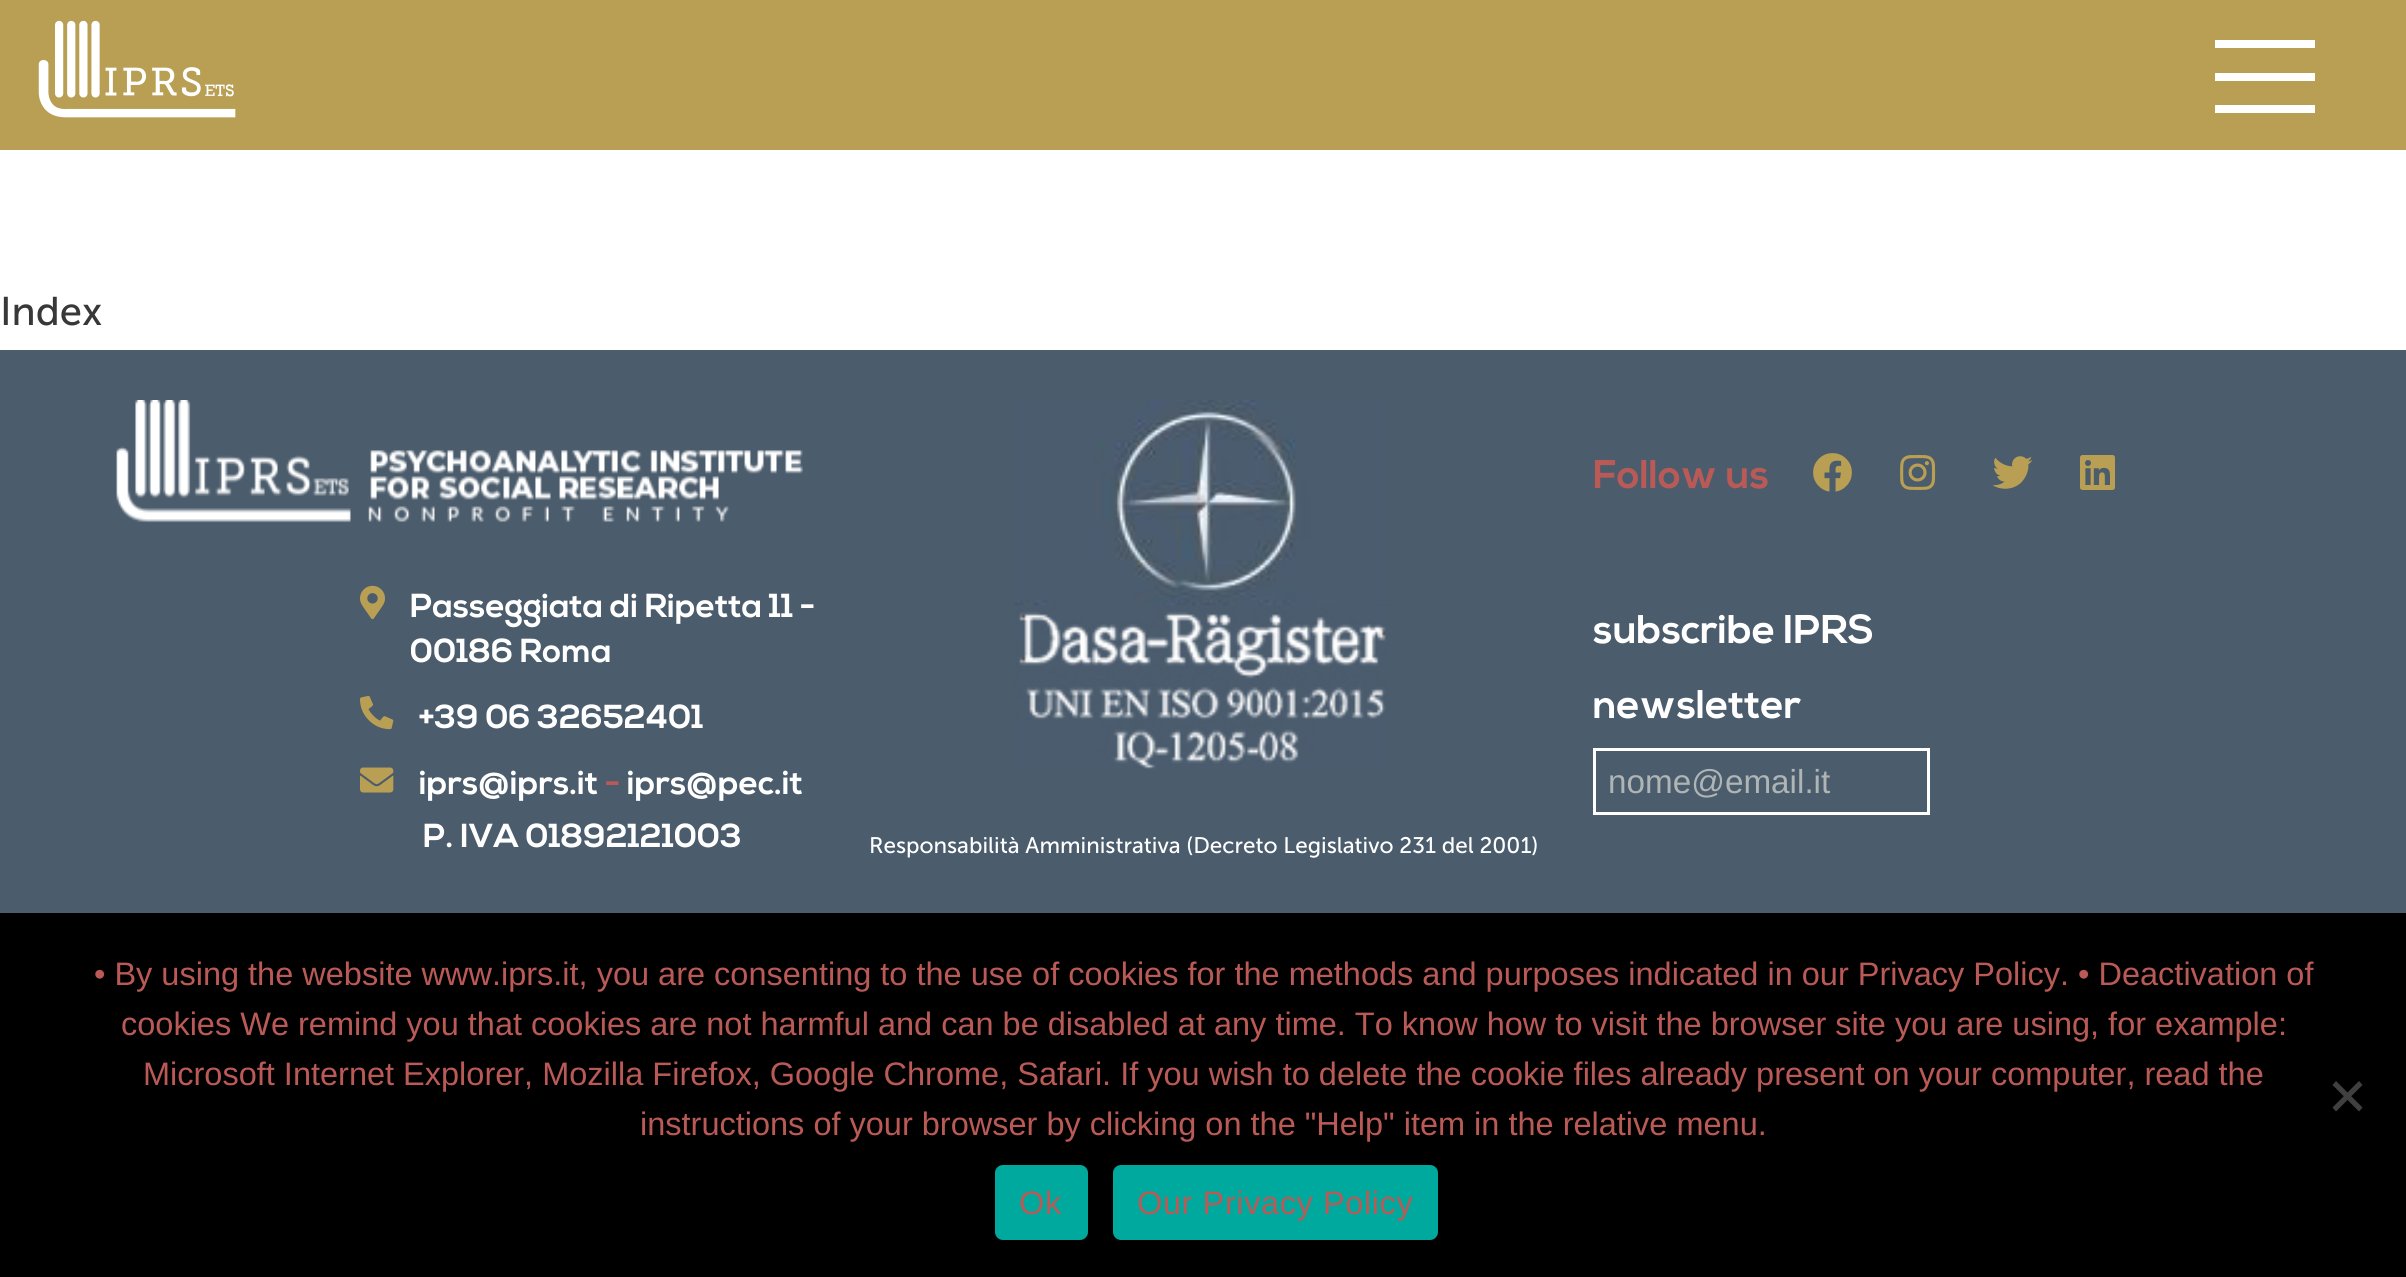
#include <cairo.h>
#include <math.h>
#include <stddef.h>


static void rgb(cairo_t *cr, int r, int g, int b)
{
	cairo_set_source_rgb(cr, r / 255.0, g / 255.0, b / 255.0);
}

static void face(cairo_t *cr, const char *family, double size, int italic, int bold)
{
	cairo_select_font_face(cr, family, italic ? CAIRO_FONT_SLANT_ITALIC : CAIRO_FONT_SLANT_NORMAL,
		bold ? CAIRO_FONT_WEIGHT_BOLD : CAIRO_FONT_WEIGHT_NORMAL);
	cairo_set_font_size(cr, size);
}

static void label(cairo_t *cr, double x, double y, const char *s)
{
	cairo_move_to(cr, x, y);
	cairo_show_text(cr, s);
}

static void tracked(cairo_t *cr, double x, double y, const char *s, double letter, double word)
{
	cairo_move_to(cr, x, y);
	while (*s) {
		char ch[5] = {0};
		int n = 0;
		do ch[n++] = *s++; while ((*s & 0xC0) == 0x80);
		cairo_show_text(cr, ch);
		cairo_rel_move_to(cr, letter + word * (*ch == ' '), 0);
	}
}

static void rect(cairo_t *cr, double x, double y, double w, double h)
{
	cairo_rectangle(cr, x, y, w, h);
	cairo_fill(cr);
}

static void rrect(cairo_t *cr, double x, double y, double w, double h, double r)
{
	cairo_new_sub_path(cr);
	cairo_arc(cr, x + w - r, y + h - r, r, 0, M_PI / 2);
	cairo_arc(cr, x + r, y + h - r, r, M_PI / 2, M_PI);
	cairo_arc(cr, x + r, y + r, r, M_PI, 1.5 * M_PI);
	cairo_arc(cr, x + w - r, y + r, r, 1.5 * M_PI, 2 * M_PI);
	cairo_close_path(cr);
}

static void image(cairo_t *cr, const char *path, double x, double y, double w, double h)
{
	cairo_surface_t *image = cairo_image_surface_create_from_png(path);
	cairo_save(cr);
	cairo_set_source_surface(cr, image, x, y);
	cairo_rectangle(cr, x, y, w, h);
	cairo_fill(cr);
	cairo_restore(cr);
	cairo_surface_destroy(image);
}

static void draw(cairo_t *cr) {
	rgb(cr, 255, 255, 255);
	cairo_paint(cr);
	rgb(cr, 184, 159, 83);
	rect(cr, 0, 0, 2406, 150);
	image(cr, "image0.png", 38, 20, 198, 98);
	rgb(cr, 255, 255, 255);
	rect(cr, 2215, 40, 100, 8);
	rect(cr, 2215, 73, 100, 8);
	rect(cr, 2215, 105, 100, 8);
	face(cr, "Museo Sans", 40, 0, 0);
	rgb(cr, 56, 56, 56);
	label(cr, 0, 325, "Index");
	rgb(cr, 75, 92, 108);
	rect(cr, 0, 350, 2406, 563);
	image(cr, "image1.png", 116, 400, 687, 123);
	image(cr, "image2.png", 360, 585, 25, 35);
	face(cr, "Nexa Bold", 33.25, 0, 1);
	rgb(cr, 255, 255, 255);
	label(cr, 410, 617, "Passeggiata di Ripetta 11 -");
	label(cr, 410, 662, "00186 Roma");
	image(cr, "image3.png", 360, 695, 34, 35);
	label(cr, 419, 728, "+39 06 32652401");
	image(cr, "image4.png", 360, 767, 34, 26);
	label(cr, 419, 794, "iprs@iprs.it");
	rgb(cr, 186, 90, 87);
	label(cr, 605, 794, "-");
	rgb(cr, 255, 255, 255);
	label(cr, 627, 794, "iprs@pec.it");
	label(cr, 423, 847, "P. IVA 01892121003");
	image(cr, "image5.png", 1015, 400, 374, 369);
	face(cr, "Museo Sans", 22.5, 0, 0);
	label(cr, 869, 853, "Responsabilità Amministrativa (Decreto Legislativo 231 del 2001)");
	face(cr, "Nexa Bold", 40, 0, 1);
	rgb(cr, 186, 90, 87);
	label(cr, 1593, 488, "Follow us");
	image(cr, "image6.png", 1813, 453, 39, 39);
	image(cr, "image7.png", 1900, 455, 36, 35);
	image(cr, "image8.png", 1992, 456, 41, 33);
	image(cr, "image9.png", 2080, 455, 35, 35);
	rgb(cr, 255, 255, 255);
	label(cr, 1593, 643, "subscribe IPRS");
	label(cr, 1593, 718, "newsletter");
	cairo_rectangle(cr, 1594.5, 749.5, 334, 64);
	cairo_set_line_width(cr, 3);
	cairo_stroke(cr);
	face(cr, "Liberation Sans", 33.25, 0, 0);
	rgb(cr, 175, 180, 181);
	label(cr, 1608, 793, "nome@email.it");
	rgb(cr, 0, 0, 0);
	rect(cr, 0, 913, 2406, 364);
	face(cr, "Liberation Sans", 32.5, 0, 0);
	rgb(cr, 186, 90, 87);
	label(cr, 94, 985, "• By using the website www.iprs.it, you are consenting to the use of cookies for the methods and purposes indicated in our Privacy Policy. • Deactivation of");
	label(cr, 121, 1035, "cookies We remind you that cookies are not harmful and can be disabled at any time. To know how to visit the browser site you are using, for example:");
	label(cr, 143, 1085, "Microsoft Internet Explorer, Mozilla Firefox, Google Chrome, Safari. If you wish to delete the cookie files already present on your computer, read the");
	label(cr, 640, 1135, "instructions of your browser by clicking on the \"Help\" item in the relative menu.");
	rgb(cr, 64, 64, 64);
	cairo_new_path(cr);
	cairo_move_to(cr, 2359, 1081);
	cairo_line_to(cr, 2362.5, 1085);
	cairo_line_to(cr, 2336, 1111.5);
	cairo_line_to(cr, 2332.5, 1107.5);
	cairo_close_path(cr);
	cairo_fill(cr);
	cairo_new_path(cr);
	cairo_move_to(cr, 2332.5, 1085);
	cairo_line_to(cr, 2336, 1081);
	cairo_line_to(cr, 2362.5, 1107.5);
	cairo_line_to(cr, 2359, 1111.5);
	cairo_close_path(cr);
	cairo_fill(cr);
	rgb(cr, 0, 169, 157);
	rrect(cr, 995, 1165, 93, 75, 8);
	cairo_fill(cr);
	rgb(cr, 186, 90, 87);
	tracked(cr, 1019, 1214, "Ok", 0.6, 0);
	rgb(cr, 0, 169, 157);
	rrect(cr, 1113, 1165, 325, 75, 8);
	cairo_fill(cr);
	rgb(cr, 186, 90, 87);
	tracked(cr, 1137, 1214, "Our Privacy Policy", 0.6, 0);
}

int main(void) {
	cairo_surface_t *surface = cairo_image_surface_create(CAIRO_FORMAT_RGB24, 2406, 1277);
	cairo_t *cr = cairo_create(surface);
	cairo_font_options_t *options = cairo_font_options_create();
	cairo_font_options_set_hint_metrics(options, CAIRO_HINT_METRICS_OFF);
	cairo_font_options_set_hint_style(options, CAIRO_HINT_STYLE_NONE);
	cairo_set_font_options(cr, options);
	cairo_set_miter_limit(cr, 4);
	draw(cr);
	cairo_surface_write_to_png(surface, "render.png");
	cairo_font_options_destroy(options);
	cairo_destroy(cr);
	cairo_surface_destroy(surface);
	return 0;
}
